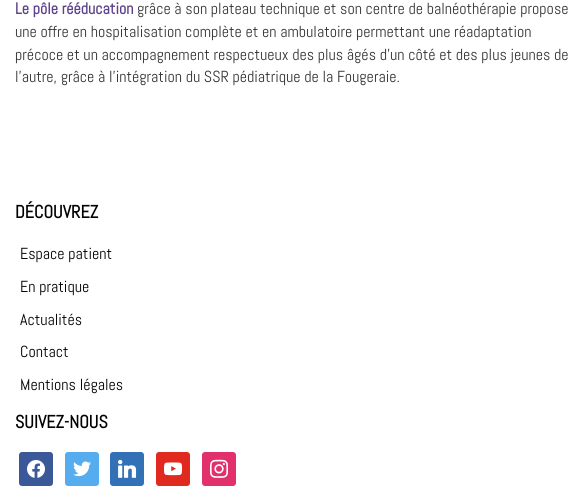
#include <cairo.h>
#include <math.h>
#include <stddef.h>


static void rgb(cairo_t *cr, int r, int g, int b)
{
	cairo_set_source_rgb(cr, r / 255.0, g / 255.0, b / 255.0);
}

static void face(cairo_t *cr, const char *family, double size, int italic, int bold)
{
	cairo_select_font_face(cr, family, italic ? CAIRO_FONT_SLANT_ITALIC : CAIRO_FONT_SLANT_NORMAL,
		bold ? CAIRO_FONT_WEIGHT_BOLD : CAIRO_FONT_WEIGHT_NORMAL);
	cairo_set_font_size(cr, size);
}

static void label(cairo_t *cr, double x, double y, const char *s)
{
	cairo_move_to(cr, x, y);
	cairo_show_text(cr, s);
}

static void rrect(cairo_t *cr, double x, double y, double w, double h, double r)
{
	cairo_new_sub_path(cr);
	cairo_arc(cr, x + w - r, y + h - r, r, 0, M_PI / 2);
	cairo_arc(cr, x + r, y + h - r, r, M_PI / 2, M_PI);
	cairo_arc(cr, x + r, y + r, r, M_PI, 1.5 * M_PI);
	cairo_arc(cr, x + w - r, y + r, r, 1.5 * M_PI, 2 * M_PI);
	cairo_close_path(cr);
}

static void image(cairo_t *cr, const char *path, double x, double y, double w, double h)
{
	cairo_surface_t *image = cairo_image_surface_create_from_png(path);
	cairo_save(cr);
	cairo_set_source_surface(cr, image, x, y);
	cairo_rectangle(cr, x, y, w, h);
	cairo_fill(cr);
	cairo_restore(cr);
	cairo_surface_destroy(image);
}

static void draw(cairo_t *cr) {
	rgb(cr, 255, 255, 255);
	cairo_paint(cr);
	face(cr, "Abel", 16, 0, 1);
	rgb(cr, 92, 65, 139);
	label(cr, 15, 14, "Le pôle rééducation");
	face(cr, "Abel", 16, 0, 0);
	rgb(cr, 51, 51, 51);
	label(cr, 137, 14, "grâce à son plateau technique et son centre de balnéothérapie propose");
	label(cr, 15, 37, "une offre en hospitalisation complète et en ambulatoire permettant une réadaptation");
	label(cr, 15, 60, "précoce et un accompagnement respectueux des plus âgés d’un côté et des plus jeunes de");
	label(cr, 15, 82, "l’autre, grâce à l’intégration du SSR pédiatrique de la Fougeraie.");
	face(cr, "Abel", 18, 0, 1);
	rgb(cr, 0, 0, 0);
	label(cr, 15, 218, "DÉCOUVREZ");
	face(cr, "Abel", 16, 0, 0);
	label(cr, 20, 259, "Espace patient");
	label(cr, 20, 292, "En pratique");
	label(cr, 20, 325, "Actualités");
	label(cr, 20, 357, "Contact");
	label(cr, 20, 390, "Mentions légales");
	face(cr, "Abel", 18, 0, 1);
	label(cr, 15, 428, "SUIVEZ-NOUS");
	rgb(cr, 59, 89, 152);
	rrect(cr, 19, 452, 34, 34, 3);
	cairo_fill(cr);
	image(cr, "image0.png", 27, 460, 18, 18);
	rgb(cr, 85, 172, 238);
	rrect(cr, 65, 452, 34, 34, 3);
	cairo_fill(cr);
	image(cr, "image1.png", 73, 461, 18, 16);
	rgb(cr, 51, 113, 183);
	rrect(cr, 110, 452, 34, 34, 3);
	cairo_fill(cr);
	image(cr, "image2.png", 118, 459, 19, 19);
	rgb(cr, 224, 42, 32);
	rrect(cr, 156, 452, 34, 34, 3);
	cairo_fill(cr);
	image(cr, "image3.png", 164, 462, 19, 14);
	rgb(cr, 225, 48, 108);
	rrect(cr, 202, 452, 34, 34, 3);
	cairo_fill(cr);
	image(cr, "image4.png", 210, 459, 18, 19);
}

int main(void) {
	cairo_surface_t *surface = cairo_image_surface_create(CAIRO_FORMAT_RGB24, 585, 489);
	cairo_t *cr = cairo_create(surface);
	cairo_font_options_t *options = cairo_font_options_create();
	cairo_font_options_set_hint_metrics(options, CAIRO_HINT_METRICS_OFF);
	cairo_font_options_set_hint_style(options, CAIRO_HINT_STYLE_NONE);
	cairo_set_font_options(cr, options);
	cairo_set_miter_limit(cr, 4);
	draw(cr);
	cairo_surface_write_to_png(surface, "render.png");
	cairo_font_options_destroy(options);
	cairo_destroy(cr);
	cairo_surface_destroy(surface);
	return 0;
}
